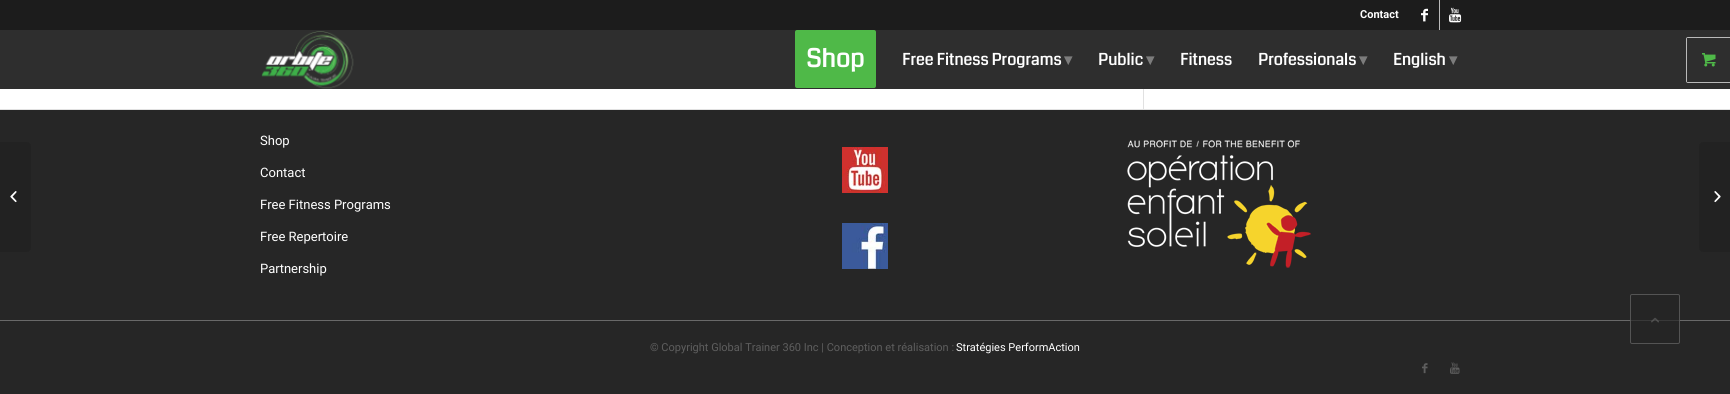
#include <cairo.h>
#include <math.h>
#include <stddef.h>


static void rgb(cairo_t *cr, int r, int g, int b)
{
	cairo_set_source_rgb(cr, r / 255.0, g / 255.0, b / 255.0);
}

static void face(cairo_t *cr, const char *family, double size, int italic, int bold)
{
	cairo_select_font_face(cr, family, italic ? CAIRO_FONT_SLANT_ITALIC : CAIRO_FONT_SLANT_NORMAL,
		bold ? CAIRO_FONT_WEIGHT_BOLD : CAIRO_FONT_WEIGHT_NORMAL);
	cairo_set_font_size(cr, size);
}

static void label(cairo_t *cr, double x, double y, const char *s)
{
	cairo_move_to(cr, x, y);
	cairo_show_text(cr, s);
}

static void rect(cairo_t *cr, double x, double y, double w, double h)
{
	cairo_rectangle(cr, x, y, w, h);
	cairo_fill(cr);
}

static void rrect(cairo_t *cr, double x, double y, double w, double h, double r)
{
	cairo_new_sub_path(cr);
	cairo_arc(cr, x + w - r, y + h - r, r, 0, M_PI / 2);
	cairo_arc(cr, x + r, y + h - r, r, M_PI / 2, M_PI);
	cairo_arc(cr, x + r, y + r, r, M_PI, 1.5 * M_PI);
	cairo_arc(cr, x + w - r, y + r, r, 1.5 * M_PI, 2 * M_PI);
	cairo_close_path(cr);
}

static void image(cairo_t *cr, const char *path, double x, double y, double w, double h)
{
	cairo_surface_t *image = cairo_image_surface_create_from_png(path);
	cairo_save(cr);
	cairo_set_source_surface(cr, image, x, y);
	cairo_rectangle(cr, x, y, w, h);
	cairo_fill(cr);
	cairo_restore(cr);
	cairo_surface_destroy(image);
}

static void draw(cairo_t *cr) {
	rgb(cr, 255, 255, 255);
	cairo_paint(cr);
	rgb(cr, 28, 28, 28);
	rect(cr, 0, 0, 1730, 30);
	face(cr, "Roboto", 11, 0, 1);
	rgb(cr, 255, 255, 255);
	label(cr, 1360, 18, "Contact");
	rgb(cr, 186, 186, 186);
	rect(cr, 1439, 0, 1, 30);
	image(cr, "image0.png", 1421, 8, 7, 14);
	image(cr, "image1.png", 1449, 7, 13, 16);
	rgb(cr, 46, 46, 46);
	rect(cr, 0, 30, 1730, 59);
	image(cr, "image2.png", 261, 31, 93, 58);
	rgb(cr, 79, 185, 72);
	rrect(cr, 796, 31, 79, 56, 1);
	cairo_fill_preserve(cr);
	cairo_stroke(cr);
	face(cr, "Coda", 25, 0, 1);
	rgb(cr, 255, 255, 255);
	label(cr, 806, 67, "Shop");
	face(cr, "Coda", 16, 0, 1);
	label(cr, 902, 65, "Free Fitness Programs");
	face(cr, "DejaVu Sans", 16, 0, 1);
	rgb(cr, 124, 124, 124);
	label(cr, 1064, 65, "▾");
	face(cr, "Coda", 16, 0, 1);
	rgb(cr, 255, 255, 255);
	label(cr, 1098, 65, "Public");
	face(cr, "DejaVu Sans", 16, 0, 1);
	rgb(cr, 124, 124, 124);
	label(cr, 1146, 65, "▾");
	face(cr, "Coda", 16, 0, 1);
	rgb(cr, 255, 255, 255);
	label(cr, 1180, 65, "Fitness");
	label(cr, 1258, 65, "Professionals");
	face(cr, "DejaVu Sans", 16, 0, 1);
	rgb(cr, 124, 124, 124);
	label(cr, 1359, 65, "▾");
	face(cr, "Coda", 16, 0, 1);
	rgb(cr, 255, 255, 255);
	label(cr, 1393, 65, "English");
	face(cr, "DejaVu Sans", 16, 0, 1);
	rgb(cr, 124, 124, 124);
	label(cr, 1449, 65, "▾");
	rrect(cr, 1686.5, 37.5, 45, 45, 1.5);
	rgb(cr, 186, 186, 186);
	cairo_set_line_width(cr, 1);
	cairo_stroke(cr);
	rgb(cr, 46, 46, 46);
	rect(cr, 1687, 38, 1, 44);
	image(cr, "image3.png", 1702, 53, 14, 14);
	rgb(cr, 38, 38, 38);
	rect(cr, 0, 110, 1730, 210);
	rgb(cr, 34, 34, 34);
	cairo_new_path(cr);
	cairo_move_to(cr, 0, 142);
	cairo_line_to(cr, 27, 142);
	cairo_curve_to(cr, 29, 142, 31, 144, 31, 146);
	cairo_line_to(cr, 31, 248);
	cairo_curve_to(cr, 31, 250, 29, 252, 27, 252);
	cairo_line_to(cr, 0, 252);
	cairo_close_path(cr);
	cairo_fill(cr);
	image(cr, "image4.png", 10, 191, 7, 12);
	rgb(cr, 225, 225, 225);
	rect(cr, 1143, 89, 1, 20);
	rect(cr, 0, 109, 1730, 1);
	face(cr, "Roboto", 13, 0, 0);
	rgb(cr, 255, 255, 255);
	label(cr, 260, 145, "Shop");
	label(cr, 260, 177, "Contact");
	label(cr, 260, 209, "Free Fitness Programs");
	label(cr, 260, 241, "Free Repertoire");
	label(cr, 260, 273, "Partnership");
	image(cr, "image5.png", 842, 147, 46, 46);
	image(cr, "image6.png", 842, 223, 46, 46);
	image(cr, "image7.png", 1127, 140, 184, 128);
	rgb(cr, 38, 38, 38);
	rect(cr, 0, 321, 1730, 73);
	rgb(cr, 105, 105, 105);
	rect(cr, 0, 320, 1730, 1);
	face(cr, "Roboto", 11, 0, 0);
	rgb(cr, 94, 94, 94);
	label(cr, 650, 351, "© Copyright Global Trainer 360 Inc | Conception et réalisation :");
	rgb(cr, 255, 255, 255);
	label(cr, 956, 351, "Stratégies PerformAction");
	image(cr, "image8.png", 1422, 363, 6, 11);
	image(cr, "image9.png", 1450, 362, 10, 12);
	rgb(cr, 34, 34, 34);
	cairo_new_path(cr);
	cairo_move_to(cr, 1703, 142);
	cairo_line_to(cr, 1730, 142);
	cairo_line_to(cr, 1730, 252);
	cairo_line_to(cr, 1703, 252);
	cairo_curve_to(cr, 1701, 252, 1699, 250, 1699, 248);
	cairo_line_to(cr, 1699, 146);
	cairo_curve_to(cr, 1699, 144, 1701, 142, 1703, 142);
	cairo_close_path(cr);
	cairo_fill(cr);
	image(cr, "image10.png", 1714, 191, 7, 12);
	cairo_set_source_rgba(cr, 0.149, 0.149, 0.149, 0.7);
	rrect(cr, 1630, 294, 50, 50, 2);
	cairo_fill(cr);
	rrect(cr, 1630.5, 294.5, 49, 49, 1.5);
	cairo_set_source_rgba(cr, 0.412, 0.412, 0.412, 0.7);
	cairo_stroke(cr);
	image(cr, "image11.png", 1651, 317, 8, 6);
}

int main(void) {
	cairo_surface_t *surface = cairo_image_surface_create(CAIRO_FORMAT_RGB24, 1730, 394);
	cairo_t *cr = cairo_create(surface);
	cairo_font_options_t *options = cairo_font_options_create();
	cairo_font_options_set_hint_metrics(options, CAIRO_HINT_METRICS_OFF);
	cairo_font_options_set_hint_style(options, CAIRO_HINT_STYLE_NONE);
	cairo_set_font_options(cr, options);
	cairo_set_miter_limit(cr, 4);
	draw(cr);
	cairo_surface_write_to_png(surface, "render.png");
	cairo_font_options_destroy(options);
	cairo_destroy(cr);
	cairo_surface_destroy(surface);
	return 0;
}
